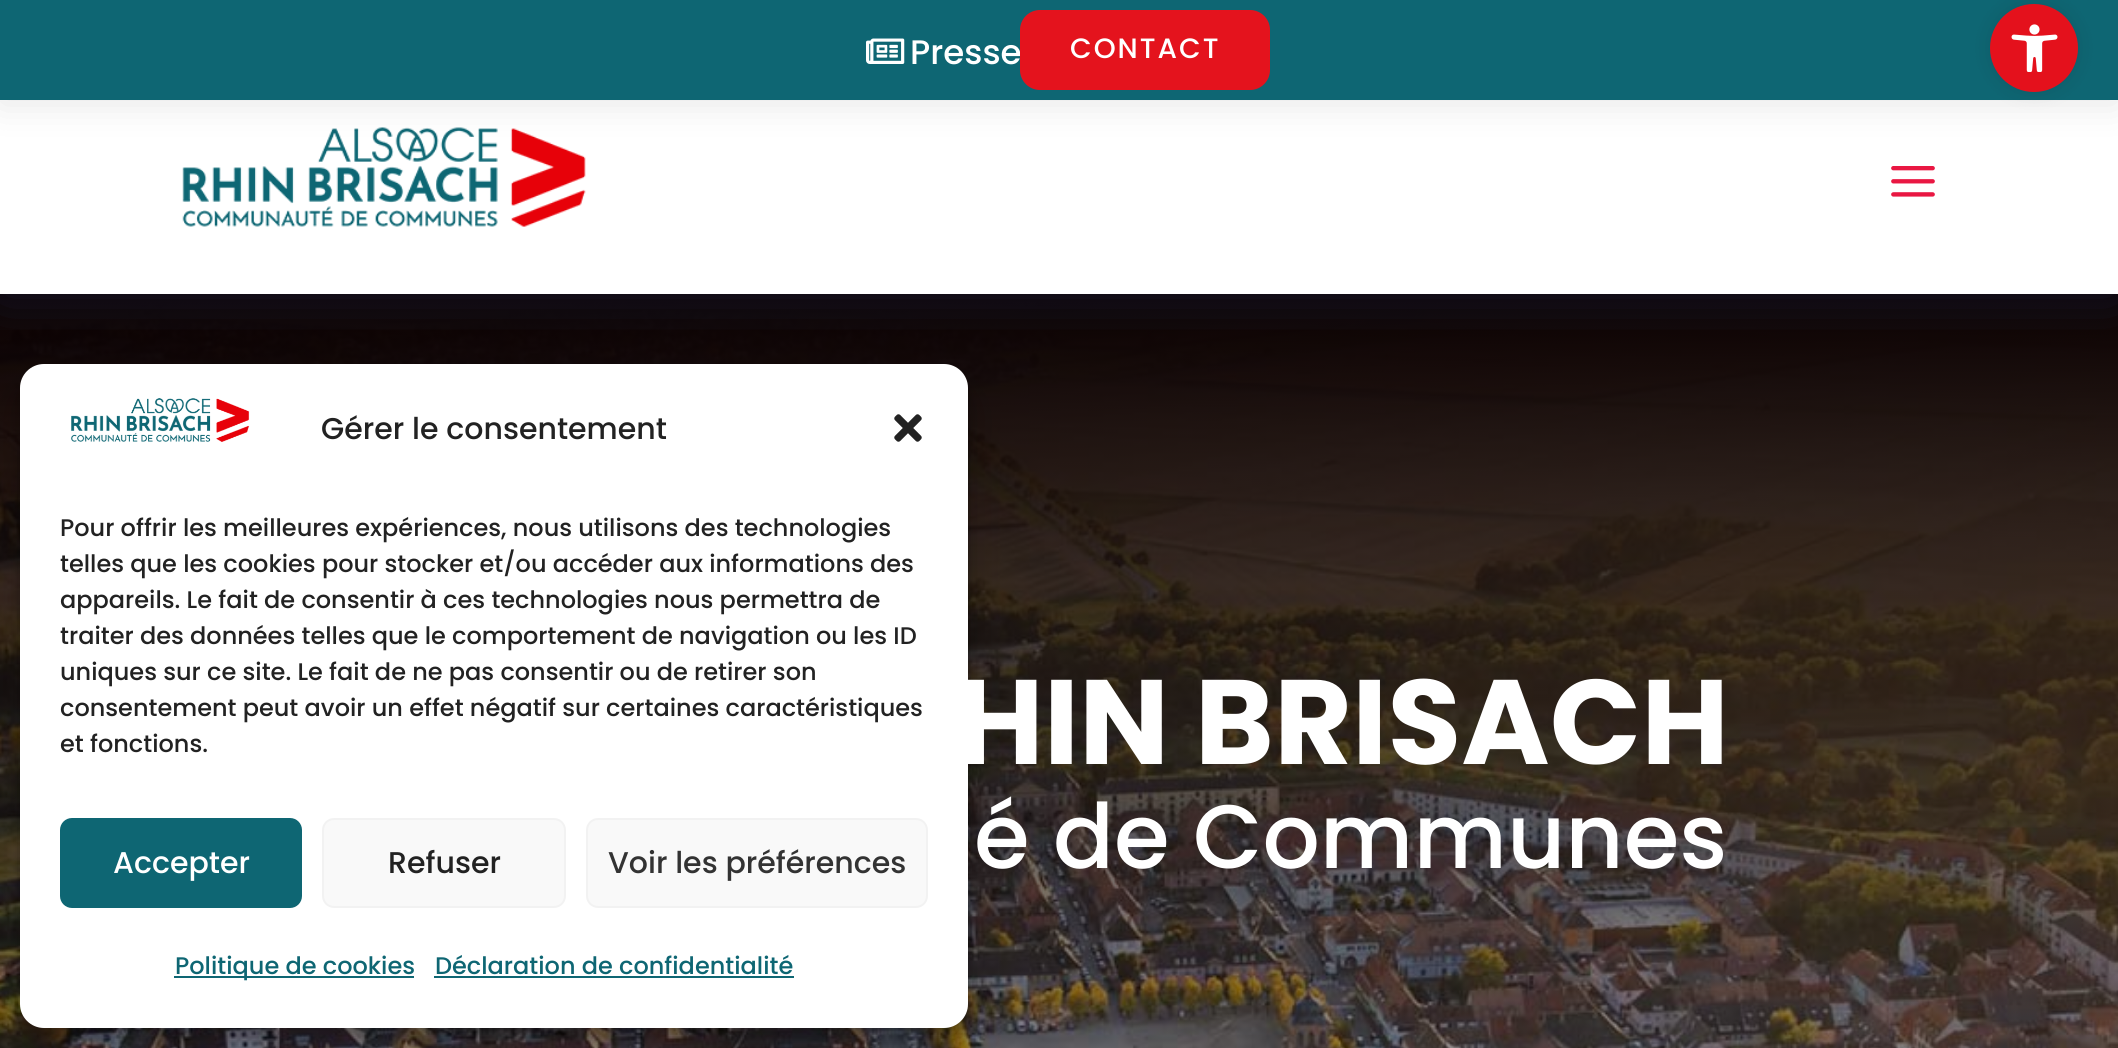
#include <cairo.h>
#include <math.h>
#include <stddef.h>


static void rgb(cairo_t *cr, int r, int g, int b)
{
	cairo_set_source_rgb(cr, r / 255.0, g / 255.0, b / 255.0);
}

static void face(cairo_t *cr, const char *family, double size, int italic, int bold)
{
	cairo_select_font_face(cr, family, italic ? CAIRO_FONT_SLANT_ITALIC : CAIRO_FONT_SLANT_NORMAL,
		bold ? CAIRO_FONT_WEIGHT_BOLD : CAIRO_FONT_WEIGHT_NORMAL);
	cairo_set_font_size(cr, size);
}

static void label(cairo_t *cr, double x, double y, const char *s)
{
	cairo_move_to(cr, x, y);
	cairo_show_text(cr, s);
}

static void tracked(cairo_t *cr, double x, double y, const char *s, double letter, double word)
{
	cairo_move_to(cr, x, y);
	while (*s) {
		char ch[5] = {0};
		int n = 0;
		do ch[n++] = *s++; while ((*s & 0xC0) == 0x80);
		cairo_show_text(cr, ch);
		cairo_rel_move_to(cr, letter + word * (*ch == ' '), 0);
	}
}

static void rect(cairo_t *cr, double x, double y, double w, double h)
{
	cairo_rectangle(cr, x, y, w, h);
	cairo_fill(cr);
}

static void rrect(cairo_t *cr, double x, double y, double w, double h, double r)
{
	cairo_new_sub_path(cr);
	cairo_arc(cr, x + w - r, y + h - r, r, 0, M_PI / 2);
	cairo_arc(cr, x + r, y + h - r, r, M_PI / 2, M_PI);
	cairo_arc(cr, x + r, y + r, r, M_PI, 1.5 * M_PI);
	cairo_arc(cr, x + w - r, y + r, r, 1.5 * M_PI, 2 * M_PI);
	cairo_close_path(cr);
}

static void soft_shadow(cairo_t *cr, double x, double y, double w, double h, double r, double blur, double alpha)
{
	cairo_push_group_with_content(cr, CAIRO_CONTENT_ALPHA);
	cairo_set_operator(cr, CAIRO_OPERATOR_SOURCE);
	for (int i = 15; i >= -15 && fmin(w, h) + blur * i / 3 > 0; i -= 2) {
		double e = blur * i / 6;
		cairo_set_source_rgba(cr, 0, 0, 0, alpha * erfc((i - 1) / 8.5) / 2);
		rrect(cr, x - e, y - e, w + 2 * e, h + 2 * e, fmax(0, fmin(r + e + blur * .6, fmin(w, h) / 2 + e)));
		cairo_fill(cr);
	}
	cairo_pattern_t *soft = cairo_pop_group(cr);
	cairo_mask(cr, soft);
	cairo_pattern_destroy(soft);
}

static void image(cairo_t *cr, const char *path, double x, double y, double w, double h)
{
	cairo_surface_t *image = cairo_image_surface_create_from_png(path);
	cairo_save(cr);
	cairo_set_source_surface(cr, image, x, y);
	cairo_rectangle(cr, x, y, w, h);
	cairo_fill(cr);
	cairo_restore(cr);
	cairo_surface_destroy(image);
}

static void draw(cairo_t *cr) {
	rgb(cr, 255, 255, 255);
	cairo_paint(cr);
	image(cr, "image5.png", 0, 294, 2118, 754);
	rgb(cr, 0, 0, 0);
	soft_shadow(cr, 20, 376, 948, 664, 24, 6, 0.23);
	soft_shadow(cr, 20, 384, 948, 664, 24, 20, 0.19);
	cairo_save(cr);
	cairo_rectangle(cr, 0, 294, 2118, 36);
	cairo_clip(cr);
	rgb(cr, 103, 151, 255);
	soft_shadow(cr, 0, 54, 2118, 240, 0, 30, 0.17);
	cairo_restore(cr);
	rgb(cr, 255, 255, 255);
	rrect(cr, 20, 364, 948, 664, 24);
	cairo_fill(cr);
	image(cr, "image0.png", 71, 398, 179, 44);
	face(cr, "Poppins Medium", 30, 0, 0);
	rgb(cr, 34, 34, 34);
	label(cr, 321, 439, "Gérer le consentement");
	image(cr, "image1.png", 894, 414, 28, 28);
	face(cr, "Poppins Medium", 24, 0, 0);
	label(cr, 60, 536, "Pour offrir les meilleures expériences, nous utilisons des technologies");
	label(cr, 60, 572, "telles que les cookies pour stocker et/ou accéder aux informations des");
	label(cr, 60, 608, "appareils. Le fait de consentir à ces technologies nous permettra de");
	label(cr, 60, 644, "traiter des données telles que le comportement de navigation ou les ID");
	label(cr, 60, 680, "uniques sur ce site. Le fait de ne pas consentir ou de retirer son");
	label(cr, 60, 716, "consentement peut avoir un effet négatif sur certaines caractéristiques");
	label(cr, 60, 752, "et fonctions.");
	rgb(cr, 14, 102, 115);
	rrect(cr, 61, 819, 240, 88, 11);
	cairo_fill_preserve(cr);
	cairo_stroke(cr);
	face(cr, "Poppins Medium", 30, 0, 0);
	rgb(cr, 255, 255, 255);
	label(cr, 113, 873, "Accepter");
	rgb(cr, 249, 249, 249);
	rrect(cr, 323, 819, 242, 88, 11);
	cairo_fill_preserve(cr);
	rgb(cr, 242, 242, 242);
	cairo_stroke(cr);
	rgb(cr, 34, 34, 34);
	label(cr, 388, 873, "Refuser");
	rgb(cr, 249, 249, 249);
	rrect(cr, 587, 819, 340, 88, 11);
	cairo_fill_preserve(cr);
	rgb(cr, 242, 242, 242);
	cairo_stroke(cr);
	rgb(cr, 51, 51, 51);
	label(cr, 608, 873, "Voir les préférences");
	rgb(cr, 14, 102, 115);
	rect(cr, 174, 976, 240, 2);
	face(cr, "Poppins Medium", 24, 0, 0);
	label(cr, 175, 974, "Politique de cookies");
	label(cr, 435, 974, "Déclaration de confidentialité");
	rect(cr, 434, 976, 360, 2);
	image(cr, "image2.png", 182, 127, 404, 100);
	image(cr, "image3.png", 1891, 166, 44, 31);
	rgb(cr, 0, 0, 0);
	soft_shadow(cr, 0, 4, 2118, 100, 0, 18, 0.1);
	rgb(cr, 14, 102, 115);
	rect(cr, 0, 0, 2118, 100);
	image(cr, "image4.png", 866, 38, 39, 26);
	face(cr, "Poppins Medium", 34, 0, 0);
	rgb(cr, 255, 255, 255);
	label(cr, 910, 64, "Presse");
	rgb(cr, 228, 19, 29);
	rrect(cr, 1020, 10, 250, 80, 20);
	cairo_fill(cr);
	face(cr, "Poppins Medium", 28, 0, 0);
	rgb(cr, 255, 255, 255);
	tracked(cr, 1070, 58, "CONTACT", 2, 0);
	face(cr, "Poppins", 120, 0, 1);
	label(cr, 956, 764, "HIN BRISACH");
	face(cr, "Poppins Medium", 90, 0, 0);
	label(cr, 974, 868, "é de Communes");
	rgb(cr, 0, 0, 0);
	soft_shadow(cr, 1990, 4, 88, 88, 44, 10, 0.1);
	rgb(cr, 228, 17, 28);
	cairo_arc(cr, 2034, 48, 44, 0, 2 * M_PI);
	cairo_fill(cr);
	image(cr, "image6.png", 2011, 24, 47, 48);
}

int main(void) {
	cairo_surface_t *surface = cairo_image_surface_create(CAIRO_FORMAT_RGB24, 2118, 1048);
	cairo_t *cr = cairo_create(surface);
	cairo_font_options_t *options = cairo_font_options_create();
	cairo_font_options_set_hint_metrics(options, CAIRO_HINT_METRICS_OFF);
	cairo_font_options_set_hint_style(options, CAIRO_HINT_STYLE_NONE);
	cairo_set_font_options(cr, options);
	cairo_set_miter_limit(cr, 4);
	draw(cr);
	cairo_surface_write_to_png(surface, "render.png");
	cairo_font_options_destroy(options);
	cairo_destroy(cr);
	cairo_surface_destroy(surface);
	return 0;
}
